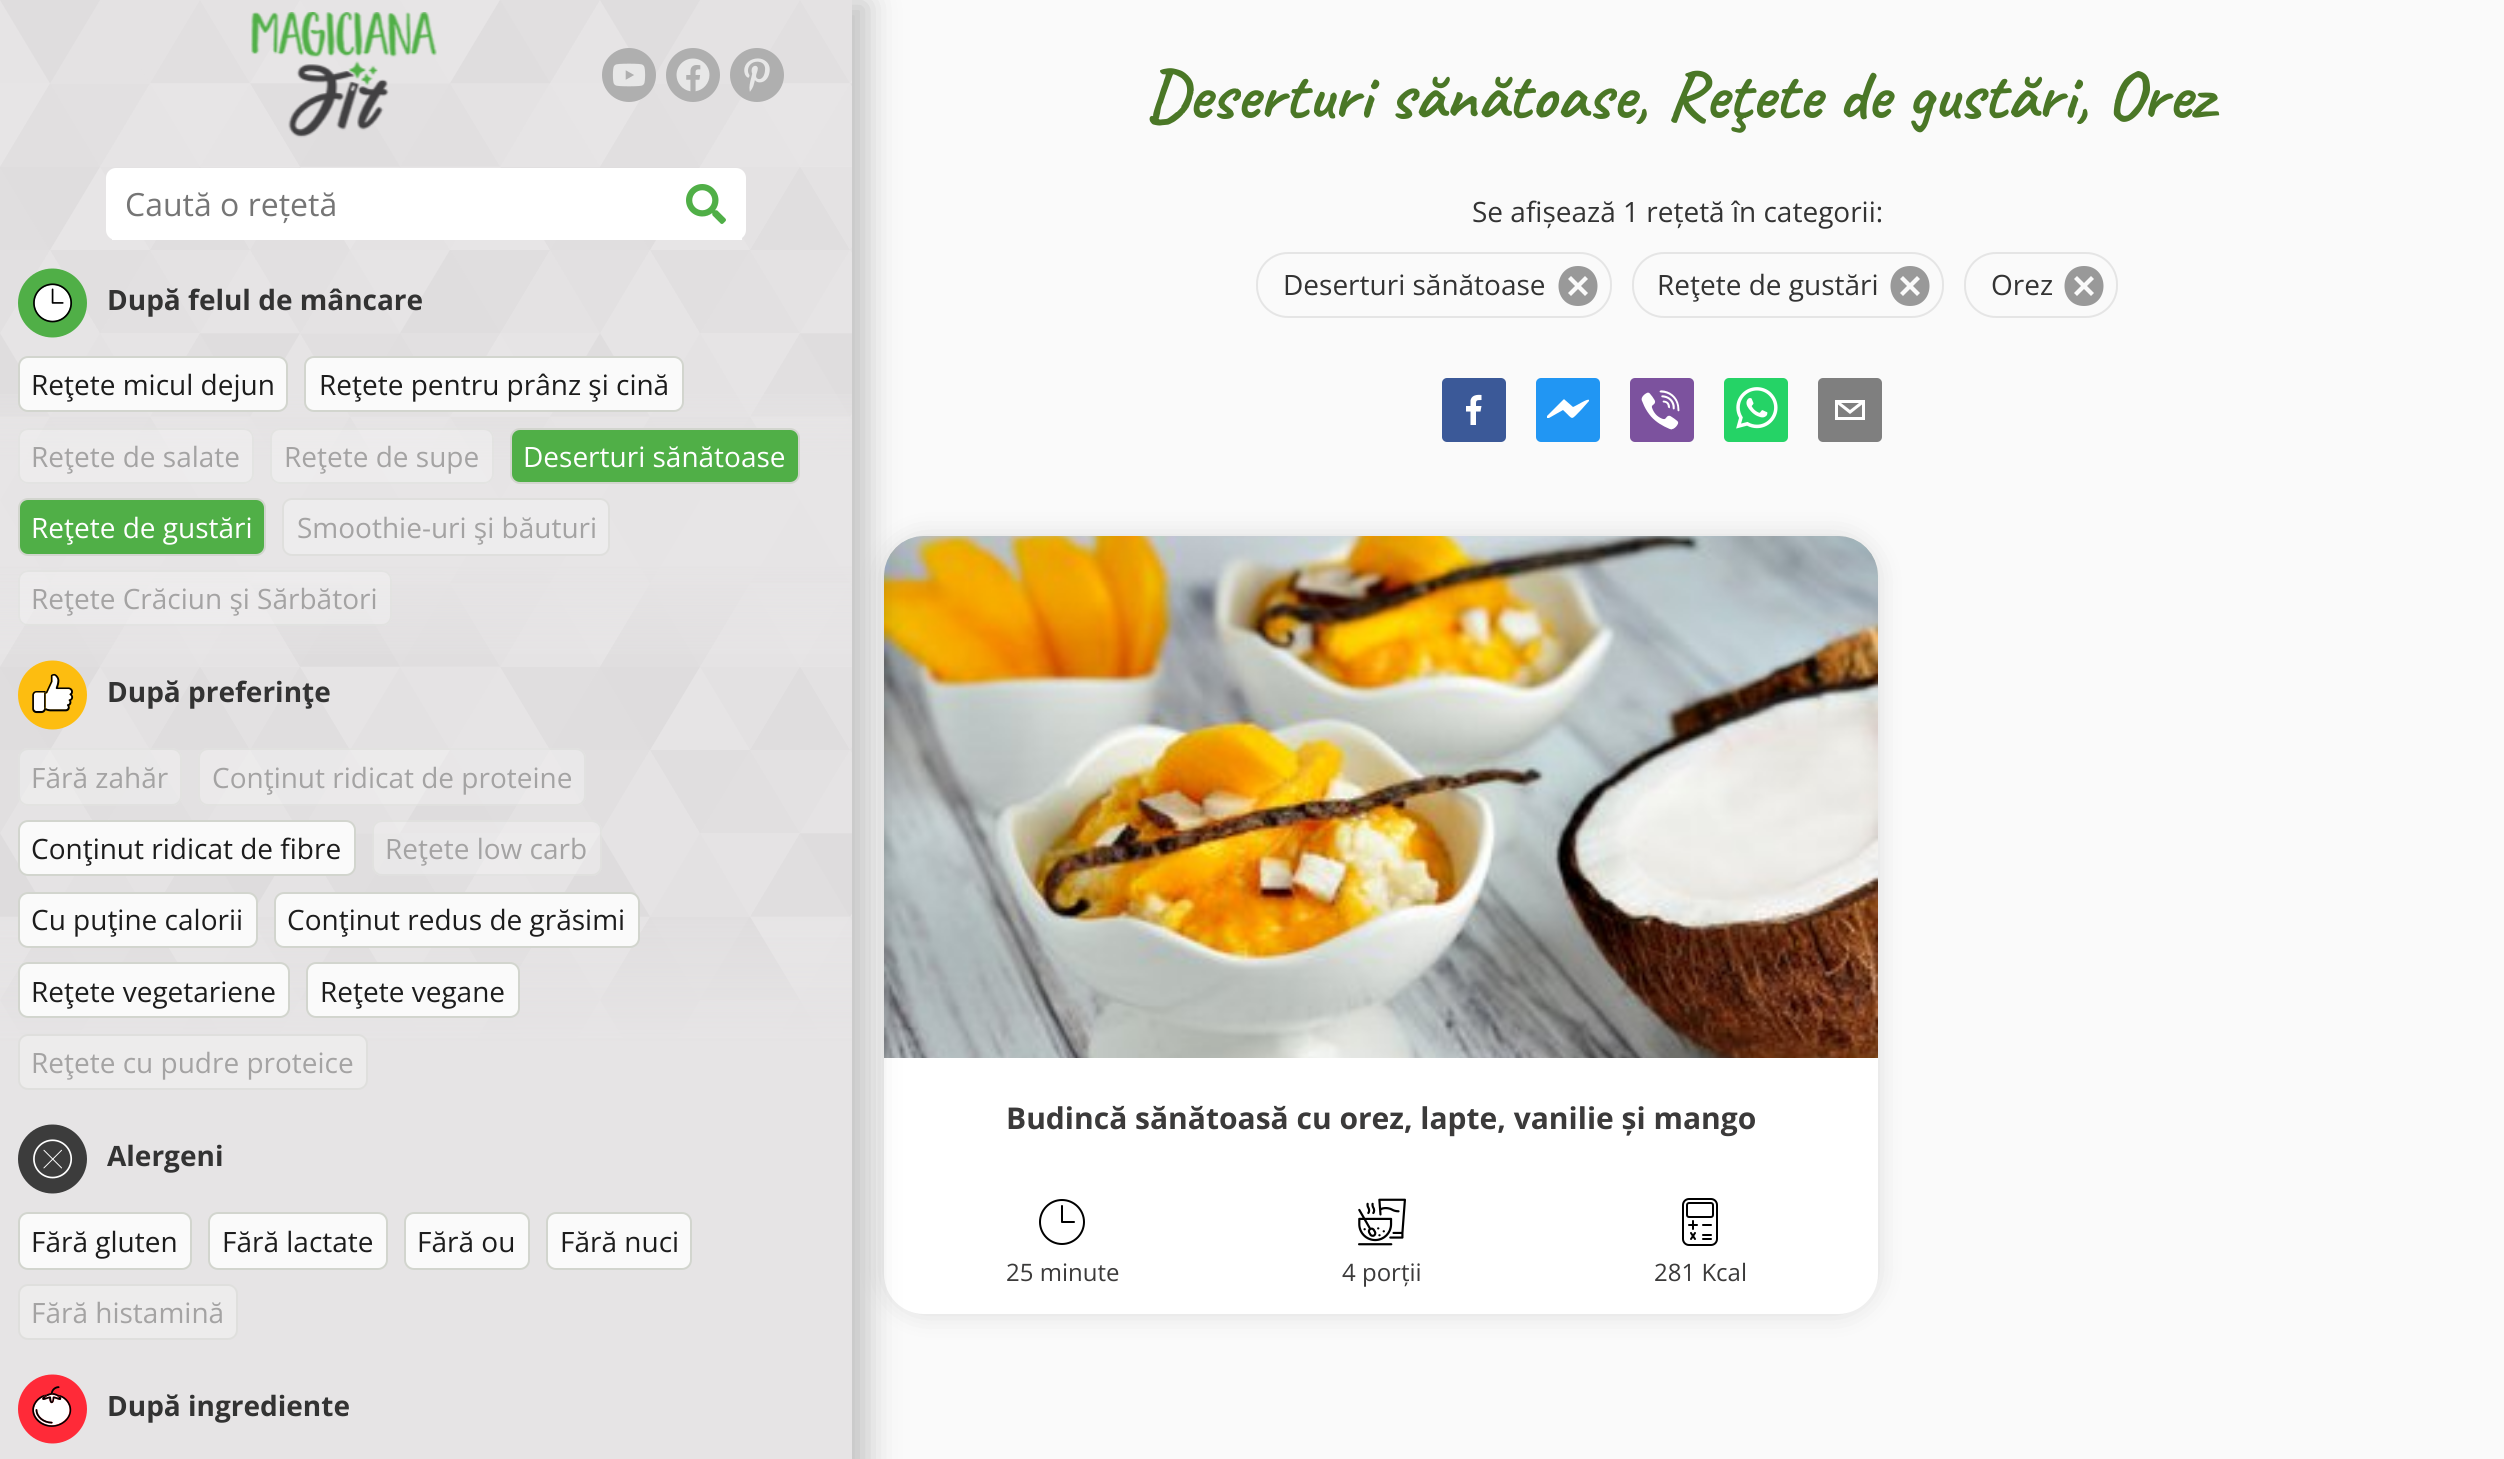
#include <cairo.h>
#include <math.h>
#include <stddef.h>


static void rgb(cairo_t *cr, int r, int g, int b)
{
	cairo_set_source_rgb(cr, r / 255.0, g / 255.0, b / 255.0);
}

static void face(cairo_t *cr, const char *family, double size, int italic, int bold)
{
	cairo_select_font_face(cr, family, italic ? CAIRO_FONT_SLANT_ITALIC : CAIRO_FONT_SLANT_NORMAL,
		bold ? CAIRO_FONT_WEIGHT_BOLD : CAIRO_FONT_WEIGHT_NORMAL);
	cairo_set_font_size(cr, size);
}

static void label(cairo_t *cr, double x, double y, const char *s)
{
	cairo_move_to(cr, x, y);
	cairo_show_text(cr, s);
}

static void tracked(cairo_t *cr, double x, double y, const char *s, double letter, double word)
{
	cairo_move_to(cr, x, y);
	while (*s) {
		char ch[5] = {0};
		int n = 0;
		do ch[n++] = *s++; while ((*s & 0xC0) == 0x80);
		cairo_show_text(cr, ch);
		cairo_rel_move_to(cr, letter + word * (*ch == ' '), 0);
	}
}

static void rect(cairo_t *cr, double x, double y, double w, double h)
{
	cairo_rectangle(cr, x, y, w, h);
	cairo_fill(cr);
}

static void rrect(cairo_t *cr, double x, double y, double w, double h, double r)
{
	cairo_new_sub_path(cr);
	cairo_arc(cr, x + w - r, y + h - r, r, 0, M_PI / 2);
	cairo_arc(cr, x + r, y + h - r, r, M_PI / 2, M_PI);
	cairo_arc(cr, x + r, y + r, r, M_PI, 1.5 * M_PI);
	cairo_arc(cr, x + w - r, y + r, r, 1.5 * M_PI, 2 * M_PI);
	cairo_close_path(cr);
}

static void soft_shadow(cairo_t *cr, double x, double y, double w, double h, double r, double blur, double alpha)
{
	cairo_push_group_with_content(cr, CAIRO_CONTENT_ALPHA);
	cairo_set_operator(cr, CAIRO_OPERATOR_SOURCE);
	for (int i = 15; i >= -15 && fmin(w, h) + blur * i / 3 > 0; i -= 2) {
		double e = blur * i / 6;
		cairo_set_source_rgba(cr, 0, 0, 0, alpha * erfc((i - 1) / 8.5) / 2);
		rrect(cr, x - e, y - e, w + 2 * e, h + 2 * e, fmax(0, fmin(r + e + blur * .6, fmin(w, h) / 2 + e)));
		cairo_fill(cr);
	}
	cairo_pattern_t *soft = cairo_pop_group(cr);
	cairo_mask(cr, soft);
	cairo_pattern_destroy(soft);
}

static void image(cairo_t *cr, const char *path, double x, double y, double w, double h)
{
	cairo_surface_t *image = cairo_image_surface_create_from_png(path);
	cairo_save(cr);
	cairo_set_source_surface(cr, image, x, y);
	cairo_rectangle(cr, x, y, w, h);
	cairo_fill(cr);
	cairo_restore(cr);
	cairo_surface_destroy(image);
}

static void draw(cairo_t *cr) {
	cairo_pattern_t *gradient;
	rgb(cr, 250, 250, 250);
	cairo_paint(cr);
	rgb(cr, 50, 50, 50);
	soft_shadow(cr, 884, 536, 994, 778, 40, 13, 0.15);
	rgb(cr, 255, 255, 255);
	rrect(cr, 884, 536, 994, 778, 40);
	cairo_fill(cr);
	rgb(cr, 210, 213, 206);
	cairo_new_path(cr);
	cairo_move_to(cr, 924, 536);
	cairo_line_to(cr, 1838, 536);
	cairo_curve_to(cr, 1860, 536, 1878, 554, 1878, 576);
	cairo_line_to(cr, 1878, 1058);
	cairo_line_to(cr, 884, 1058);
	cairo_line_to(cr, 884, 576);
	cairo_curve_to(cr, 884, 554, 902, 536, 924, 536);
	cairo_close_path(cr);
	cairo_fill(cr);
	image(cr, "image12.png", 884, 536, 994, 522);
	rgb(cr, 56, 56, 56);
	soft_shadow(cr, 20, 2, 848, 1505, 0, 16, 0.29);
	rgb(cr, 230, 228, 229);
	rect(cr, 0, 0, 852, 1042);
	image(cr, "image0.png", 0, 0, 852, 1042);
	gradient = cairo_pattern_create_linear(426, 0, 426, 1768);
	cairo_pattern_add_color_stop_rgba(gradient, 0, 0.902, 0.894, 0.898, 0.01);
	cairo_pattern_add_color_stop_rgba(gradient, 0.21, 0.902, 0.894, 0.898, 0.01);
	cairo_pattern_add_color_stop_rgba(gradient, 0.26, 0.902, 0.894, 0.898, 0.95);
	cairo_pattern_add_color_stop_rgba(gradient, 0.32, 0.902, 0.894, 0.898, 0.95);
	cairo_pattern_add_color_stop_rgba(gradient, 0.37, 0.902, 0.894, 0.898, 0.01);
	cairo_pattern_add_color_stop_rgba(gradient, 0.52, 0.902, 0.894, 0.898, 0.01);
	cairo_pattern_add_color_stop_rgba(gradient, 0.59, 0.902, 0.894, 0.898, 1);
	cairo_pattern_add_color_stop_rgba(gradient, 1, 0.902, 0.894, 0.898, 1);
	cairo_set_source(cr, gradient);
	cairo_pattern_destroy(gradient);
	rect(cr, 0, 394, 852, 1065);
	image(cr, "image1.png", 251, 12, 186, 126);
	rgb(cr, 175, 175, 175);
	cairo_arc(cr, 629, 75, 27, 0, 2 * M_PI);
	cairo_fill(cr);
	cairo_arc(cr, 693, 75, 27, 0, 2 * M_PI);
	cairo_fill(cr);
	cairo_arc(cr, 757, 75, 27, 0, 2 * M_PI);
	cairo_fill(cr);
	image(cr, "image2.png", 612, 63, 34, 24);
	image(cr, "image3.png", 676, 58, 34, 34);
	image(cr, "image4.png", 744, 58, 26, 34);
	rgb(cr, 255, 255, 255);
	rrect(cr, 106, 168, 640, 72, 10);
	cairo_fill(cr);
	rect(cr, 112, 238, 630, 2);
	face(cr, "Open Sans", 32, 0, 0);
	rgb(cr, 117, 117, 117);
	label(cr, 125, 216, "Caută o rețetă");
	image(cr, "image5.png", 686, 184, 40, 40);
	image(cr, "image6.png", 18, 268, 69, 70);
	face(cr, "Open Sans", 28, 0, 1);
	rgb(cr, 51, 51, 51);
	label(cr, 107, 310, "După felul de mâncare");
	rgb(cr, 250, 250, 250);
	rrect(cr, 19, 357, 268, 54, 9);
	cairo_fill_preserve(cr);
	rgb(cr, 210, 213, 206);
	cairo_stroke(cr);
	face(cr, "Open Sans", 28, 0, 0);
	rgb(cr, 28, 28, 28);
	label(cr, 31, 395, "Reţete micul dejun");
	rgb(cr, 250, 250, 250);
	rrect(cr, 305, 357, 378, 54, 9);
	cairo_fill_preserve(cr);
	rgb(cr, 210, 213, 206);
	cairo_stroke(cr);
	rgb(cr, 28, 28, 28);
	label(cr, 319, 395, "Reţete pentru prânz şi cină");
	cairo_set_source_rgba(cr, 0.98, 0.98, 0.98, 0.35);
	rrect(cr, 18, 428, 236, 56, 10);
	cairo_fill(cr);
	rrect(cr, 19, 429, 234, 54, 9);
	cairo_set_source_rgba(cr, 0.824, 0.835, 0.808, 0.35);
	cairo_stroke(cr);
	rgb(cr, 164, 163, 163);
	label(cr, 31, 467, "Reţete de salate");
	cairo_set_source_rgba(cr, 0.98, 0.98, 0.98, 0.35);
	rrect(cr, 270, 428, 224, 56, 10);
	cairo_fill(cr);
	rrect(cr, 271, 429, 222, 54, 9);
	cairo_set_source_rgba(cr, 0.824, 0.835, 0.808, 0.35);
	cairo_stroke(cr);
	rgb(cr, 164, 163, 163);
	label(cr, 284, 467, "Reţete de supe");
	rgb(cr, 80, 175, 71);
	rrect(cr, 511, 429, 288, 54, 9);
	cairo_fill_preserve(cr);
	rgb(cr, 210, 213, 206);
	cairo_stroke(cr);
	rgb(cr, 255, 255, 255);
	label(cr, 523, 467, "Deserturi sănătoase");
	rgb(cr, 80, 175, 71);
	rrect(cr, 19, 499, 246, 56, 9);
	cairo_fill_preserve(cr);
	rgb(cr, 210, 213, 206);
	cairo_stroke(cr);
	rgb(cr, 255, 255, 255);
	label(cr, 31, 538, "Reţete de gustări");
	rgb(cr, 237, 236, 237);
	rrect(cr, 283, 499, 326, 56, 9);
	cairo_fill_preserve(cr);
	rgb(cr, 223, 223, 221);
	cairo_stroke(cr);
	rgb(cr, 164, 163, 163);
	label(cr, 297, 538, "Smoothie-uri şi băuturi");
	cairo_set_source_rgba(cr, 0.98, 0.98, 0.98, 0.35);
	rrect(cr, 18, 570, 374, 56, 10);
	cairo_fill(cr);
	rrect(cr, 19, 571, 372, 54, 9);
	cairo_set_source_rgba(cr, 0.824, 0.835, 0.808, 0.35);
	cairo_stroke(cr);
	rgb(cr, 164, 163, 163);
	label(cr, 31, 609, "Reţete Crăciun şi Sărbători");
	image(cr, "image7.png", 18, 660, 69, 70);
	face(cr, "Open Sans", 28, 0, 1);
	rgb(cr, 51, 51, 51);
	label(cr, 107, 702, "După preferinţe");
	cairo_set_source_rgba(cr, 0.98, 0.98, 0.98, 0.35);
	rrect(cr, 18, 748, 164, 58, 10);
	cairo_fill(cr);
	rrect(cr, 19, 749, 162, 56, 9);
	cairo_set_source_rgba(cr, 0.824, 0.835, 0.808, 0.35);
	cairo_stroke(cr);
	face(cr, "Open Sans", 28, 0, 0);
	rgb(cr, 164, 163, 163);
	label(cr, 31, 788, "Fără zahăr");
	cairo_set_source_rgba(cr, 0.98, 0.98, 0.98, 0.35);
	rrect(cr, 198, 748, 388, 58, 10);
	cairo_fill(cr);
	rrect(cr, 199, 749, 386, 56, 9);
	cairo_set_source_rgba(cr, 0.824, 0.835, 0.808, 0.35);
	cairo_stroke(cr);
	rgb(cr, 164, 163, 163);
	label(cr, 212, 788, "Conţinut ridicat de proteine");
	rgb(cr, 250, 250, 250);
	rrect(cr, 19, 821, 336, 54, 9);
	cairo_fill_preserve(cr);
	rgb(cr, 210, 213, 206);
	cairo_stroke(cr);
	rgb(cr, 28, 28, 28);
	label(cr, 31, 859, "Conţinut ridicat de fibre");
	cairo_set_source_rgba(cr, 0.98, 0.98, 0.98, 0.35);
	rrect(cr, 372, 820, 230, 56, 10);
	cairo_fill(cr);
	rrect(cr, 373, 821, 228, 54, 9);
	cairo_set_source_rgba(cr, 0.824, 0.835, 0.808, 0.35);
	cairo_stroke(cr);
	rgb(cr, 164, 163, 163);
	label(cr, 385, 859, "Reţete low carb");
	rgb(cr, 250, 250, 250);
	rrect(cr, 19, 893, 238, 54, 9);
	cairo_fill_preserve(cr);
	rgb(cr, 210, 213, 206);
	cairo_stroke(cr);
	rgb(cr, 28, 28, 28);
	label(cr, 31, 930, "Cu puţine calorii");
	rgb(cr, 250, 250, 250);
	rrect(cr, 275, 893, 364, 54, 9);
	cairo_fill_preserve(cr);
	rgb(cr, 210, 213, 206);
	cairo_stroke(cr);
	rgb(cr, 28, 28, 28);
	label(cr, 287, 930, "Conţinut redus de grăsimi");
	rgb(cr, 250, 250, 250);
	rrect(cr, 19, 963, 270, 54, 9);
	cairo_fill_preserve(cr);
	rgb(cr, 210, 213, 206);
	cairo_stroke(cr);
	rgb(cr, 28, 28, 28);
	label(cr, 31, 1002, "Reţete vegetariene");
	rgb(cr, 250, 250, 250);
	rrect(cr, 307, 963, 212, 54, 9);
	cairo_fill_preserve(cr);
	rgb(cr, 210, 213, 206);
	cairo_stroke(cr);
	rgb(cr, 28, 28, 28);
	label(cr, 320, 1002, "Reţete vegane");
	rgb(cr, 237, 236, 236);
	rrect(cr, 19, 1035, 348, 54, 9);
	cairo_fill_preserve(cr);
	rgb(cr, 223, 223, 221);
	cairo_stroke(cr);
	rgb(cr, 164, 163, 163);
	label(cr, 31, 1073, "Reţete cu pudre proteice");
	image(cr, "image8.png", 18, 1124, 69, 70);
	face(cr, "Open Sans", 28, 0, 1);
	rgb(cr, 51, 51, 51);
	label(cr, 107, 1166, "Alergeni");
	rgb(cr, 250, 250, 250);
	rrect(cr, 19, 1213, 172, 56, 9);
	cairo_fill_preserve(cr);
	rgb(cr, 210, 213, 206);
	cairo_stroke(cr);
	face(cr, "Open Sans", 28, 0, 0);
	rgb(cr, 28, 28, 28);
	label(cr, 31, 1252, "Fără gluten");
	rgb(cr, 250, 250, 250);
	rrect(cr, 209, 1213, 178, 56, 9);
	cairo_fill_preserve(cr);
	rgb(cr, 210, 213, 206);
	cairo_stroke(cr);
	rgb(cr, 28, 28, 28);
	label(cr, 222, 1252, "Fără lactate");
	rgb(cr, 250, 250, 250);
	rrect(cr, 405, 1213, 124, 56, 9);
	cairo_fill_preserve(cr);
	rgb(cr, 210, 213, 206);
	cairo_stroke(cr);
	rgb(cr, 28, 28, 28);
	label(cr, 417, 1252, "Fără ou");
	rgb(cr, 250, 250, 250);
	rrect(cr, 547, 1213, 144, 56, 9);
	cairo_fill_preserve(cr);
	rgb(cr, 210, 213, 206);
	cairo_stroke(cr);
	rgb(cr, 28, 28, 28);
	label(cr, 560, 1252, "Fără nuci");
	rgb(cr, 237, 236, 236);
	rrect(cr, 19, 1285, 218, 54, 9);
	cairo_fill_preserve(cr);
	rgb(cr, 223, 223, 221);
	cairo_stroke(cr);
	rgb(cr, 164, 163, 163);
	label(cr, 31, 1323, "Fără histamină");
	image(cr, "image9.png", 18, 1374, 69, 70);
	face(cr, "Open Sans", 28, 0, 1);
	rgb(cr, 51, 51, 51);
	label(cr, 107, 1416, "După ingrediente");
	face(cr, "Caveat", 70, 0, 1);
	rgb(cr, 74, 119, 38);
	tracked(cr, 1146, 118, "Deserturi sănătoase, Reţete de gustări, Orez", 0, 0.5);
	face(cr, "Open Sans", 28, 0, 0);
	rgb(cr, 51, 51, 51);
	label(cr, 1472, 222, "Se afișează 1 rețetă în categorii:");
	rrect(cr, 1257, 253, 354, 64, 31);
	rgb(cr, 229, 229, 229);
	cairo_stroke(cr);
	rgb(cr, 51, 51, 51);
	label(cr, 1283, 295, "Deserturi sănătoase");
	rgb(cr, 153, 153, 153);
	cairo_new_path(cr);
	cairo_move_to(cr, 1578, 266);
	cairo_curve_to(cr, 1552, 266, 1552, 306, 1578, 306);
	cairo_curve_to(cr, 1604, 306, 1604, 266, 1578, 266);
	cairo_close_path(cr);
	cairo_move_to(cr, 1588, 293);
	cairo_line_to(cr, 1585, 296);
	cairo_line_to(cr, 1578, 289);
	cairo_line_to(cr, 1571, 296);
	cairo_line_to(cr, 1568, 293);
	cairo_line_to(cr, 1575, 286);
	cairo_line_to(cr, 1568, 279);
	cairo_line_to(cr, 1571, 276);
	cairo_line_to(cr, 1578, 283);
	cairo_line_to(cr, 1585, 276);
	cairo_line_to(cr, 1588, 279);
	cairo_line_to(cr, 1581, 286);
	cairo_close_path(cr);
	cairo_fill(cr);
	rrect(cr, 1633, 253, 310, 64, 31);
	rgb(cr, 229, 229, 229);
	cairo_stroke(cr);
	rgb(cr, 51, 51, 51);
	label(cr, 1657, 295, "Reţete de gustări");
	rgb(cr, 153, 153, 153);
	cairo_new_path(cr);
	cairo_move_to(cr, 1910, 266);
	cairo_curve_to(cr, 1884, 266, 1884, 306, 1910, 306);
	cairo_curve_to(cr, 1936, 306, 1936, 266, 1910, 266);
	cairo_close_path(cr);
	cairo_move_to(cr, 1920, 293);
	cairo_line_to(cr, 1917, 296);
	cairo_line_to(cr, 1910, 289);
	cairo_line_to(cr, 1903, 296);
	cairo_line_to(cr, 1900, 293);
	cairo_line_to(cr, 1907, 286);
	cairo_line_to(cr, 1900, 279);
	cairo_line_to(cr, 1903, 276);
	cairo_line_to(cr, 1910, 283);
	cairo_line_to(cr, 1917, 276);
	cairo_line_to(cr, 1920, 279);
	cairo_line_to(cr, 1913, 286);
	cairo_close_path(cr);
	cairo_fill(cr);
	rrect(cr, 1965, 253, 152, 64, 31);
	rgb(cr, 229, 229, 229);
	cairo_stroke(cr);
	rgb(cr, 51, 51, 51);
	label(cr, 1991, 295, "Orez");
	rgb(cr, 153, 153, 153);
	cairo_new_path(cr);
	cairo_move_to(cr, 2084, 266);
	cairo_curve_to(cr, 2058, 266, 2058, 306, 2084, 306);
	cairo_curve_to(cr, 2110, 306, 2110, 266, 2084, 266);
	cairo_close_path(cr);
	cairo_move_to(cr, 2094, 293);
	cairo_line_to(cr, 2091, 296);
	cairo_line_to(cr, 2084, 289);
	cairo_line_to(cr, 2077, 296);
	cairo_line_to(cr, 2074, 293);
	cairo_line_to(cr, 2081, 286);
	cairo_line_to(cr, 2074, 279);
	cairo_line_to(cr, 2077, 276);
	cairo_line_to(cr, 2084, 283);
	cairo_line_to(cr, 2091, 276);
	cairo_line_to(cr, 2094, 279);
	cairo_line_to(cr, 2087, 286);
	cairo_close_path(cr);
	cairo_fill(cr);
	rgb(cr, 59, 89, 152);
	rrect(cr, 1442, 378, 64, 64, 5);
	cairo_fill(cr);
	rgb(cr, 255, 255, 255);
	cairo_new_path(cr);
	cairo_move_to(cr, 1476, 425);
	cairo_line_to(cr, 1476, 411.5);
	cairo_line_to(cr, 1480.5, 411.5);
	cairo_line_to(cr, 1481.5, 406);
	cairo_line_to(cr, 1476, 406);
	cairo_curve_to(cr, 1476, 400.5, 1475.5, 400, 1481.5, 400);
	cairo_line_to(cr, 1481.5, 395);
	cairo_curve_to(cr, 1477, 394.5, 1471.5, 395, 1470.5, 400.5);
	cairo_line_to(cr, 1470.5, 406);
	cairo_line_to(cr, 1466, 406);
	cairo_line_to(cr, 1466, 411.5);
	cairo_line_to(cr, 1470.5, 411.5);
	cairo_line_to(cr, 1470.5, 425);
	cairo_close_path(cr);
	cairo_fill(cr);
	rgb(cr, 33, 150, 243);
	rrect(cr, 1536, 378, 64, 64, 5);
	cairo_fill(cr);
	rgb(cr, 255, 255, 255);
	cairo_new_path(cr);
	cairo_move_to(cr, 1589, 400);
	cairo_curve_to(cr, 1588, 398, 1576, 406, 1573, 407);
	cairo_line_to(cr, 1565, 400);
	cairo_curve_to(cr, 1564, 399, 1564, 399, 1563, 400);
	cairo_line_to(cr, 1547, 416);
	cairo_curve_to(cr, 1547, 416, 1547, 417, 1547, 418);
	cairo_curve_to(cr, 1547, 418, 1548, 418, 1549, 418);
	cairo_line_to(cr, 1563, 410);
	cairo_curve_to(cr, 1574, 420, 1570, 421, 1581, 410);
	cairo_line_to(cr, 1589, 401);
	cairo_close_path(cr);
	cairo_fill(cr);
	image(cr, "image10.png", 1630, 378, 64, 64);
	image(cr, "image11.png", 1724, 378, 64, 64);
	rgb(cr, 127, 127, 127);
	rrect(cr, 1818, 378, 64, 64, 5);
	cairo_fill(cr);
	rgb(cr, 255, 255, 255);
	cairo_new_path(cr);
	cairo_move_to(cr, 1835, 400);
	cairo_line_to(cr, 1835, 420);
	cairo_line_to(cr, 1865, 420);
	cairo_line_to(cr, 1865, 400);
	cairo_close_path(cr);
	cairo_move_to(cr, 1859, 403);
	cairo_line_to(cr, 1850, 410);
	cairo_line_to(cr, 1841, 403);
	cairo_close_path(cr);
	cairo_move_to(cr, 1838, 417);
	cairo_line_to(cr, 1838, 404.5);
	cairo_line_to(cr, 1850, 414);
	cairo_line_to(cr, 1862, 404.5);
	cairo_line_to(cr, 1862, 417);
	cairo_close_path(cr);
	cairo_fill(cr);
	face(cr, "Open Sans", 30, 0, 1);
	rgb(cr, 59, 58, 58);
	label(cr, 1006, 1129, "Budincă sănătoasă cu orez, lapte, vanilie și mango");
	image(cr, "image13.png", 1039, 1199, 46, 46);
	face(cr, "Open Sans", 24, 0, 0);
	label(cr, 1006, 1281, "25 minute");
	image(cr, "image14.png", 1358, 1198, 48, 48);
	label(cr, 1342, 1281, "4 porții");
	image(cr, "image15.png", 1682, 1198, 36, 48);
	label(cr, 1654, 1281, "281 Kcal");
}

int main(void) {
	cairo_surface_t *surface = cairo_image_surface_create(CAIRO_FORMAT_RGB24, 2504, 1459);
	cairo_t *cr = cairo_create(surface);
	cairo_font_options_t *options = cairo_font_options_create();
	cairo_font_options_set_hint_metrics(options, CAIRO_HINT_METRICS_OFF);
	cairo_font_options_set_hint_style(options, CAIRO_HINT_STYLE_NONE);
	cairo_set_font_options(cr, options);
	cairo_set_miter_limit(cr, 4);
	draw(cr);
	cairo_surface_write_to_png(surface, "render.png");
	cairo_font_options_destroy(options);
	cairo_destroy(cr);
	cairo_surface_destroy(surface);
	return 0;
}
